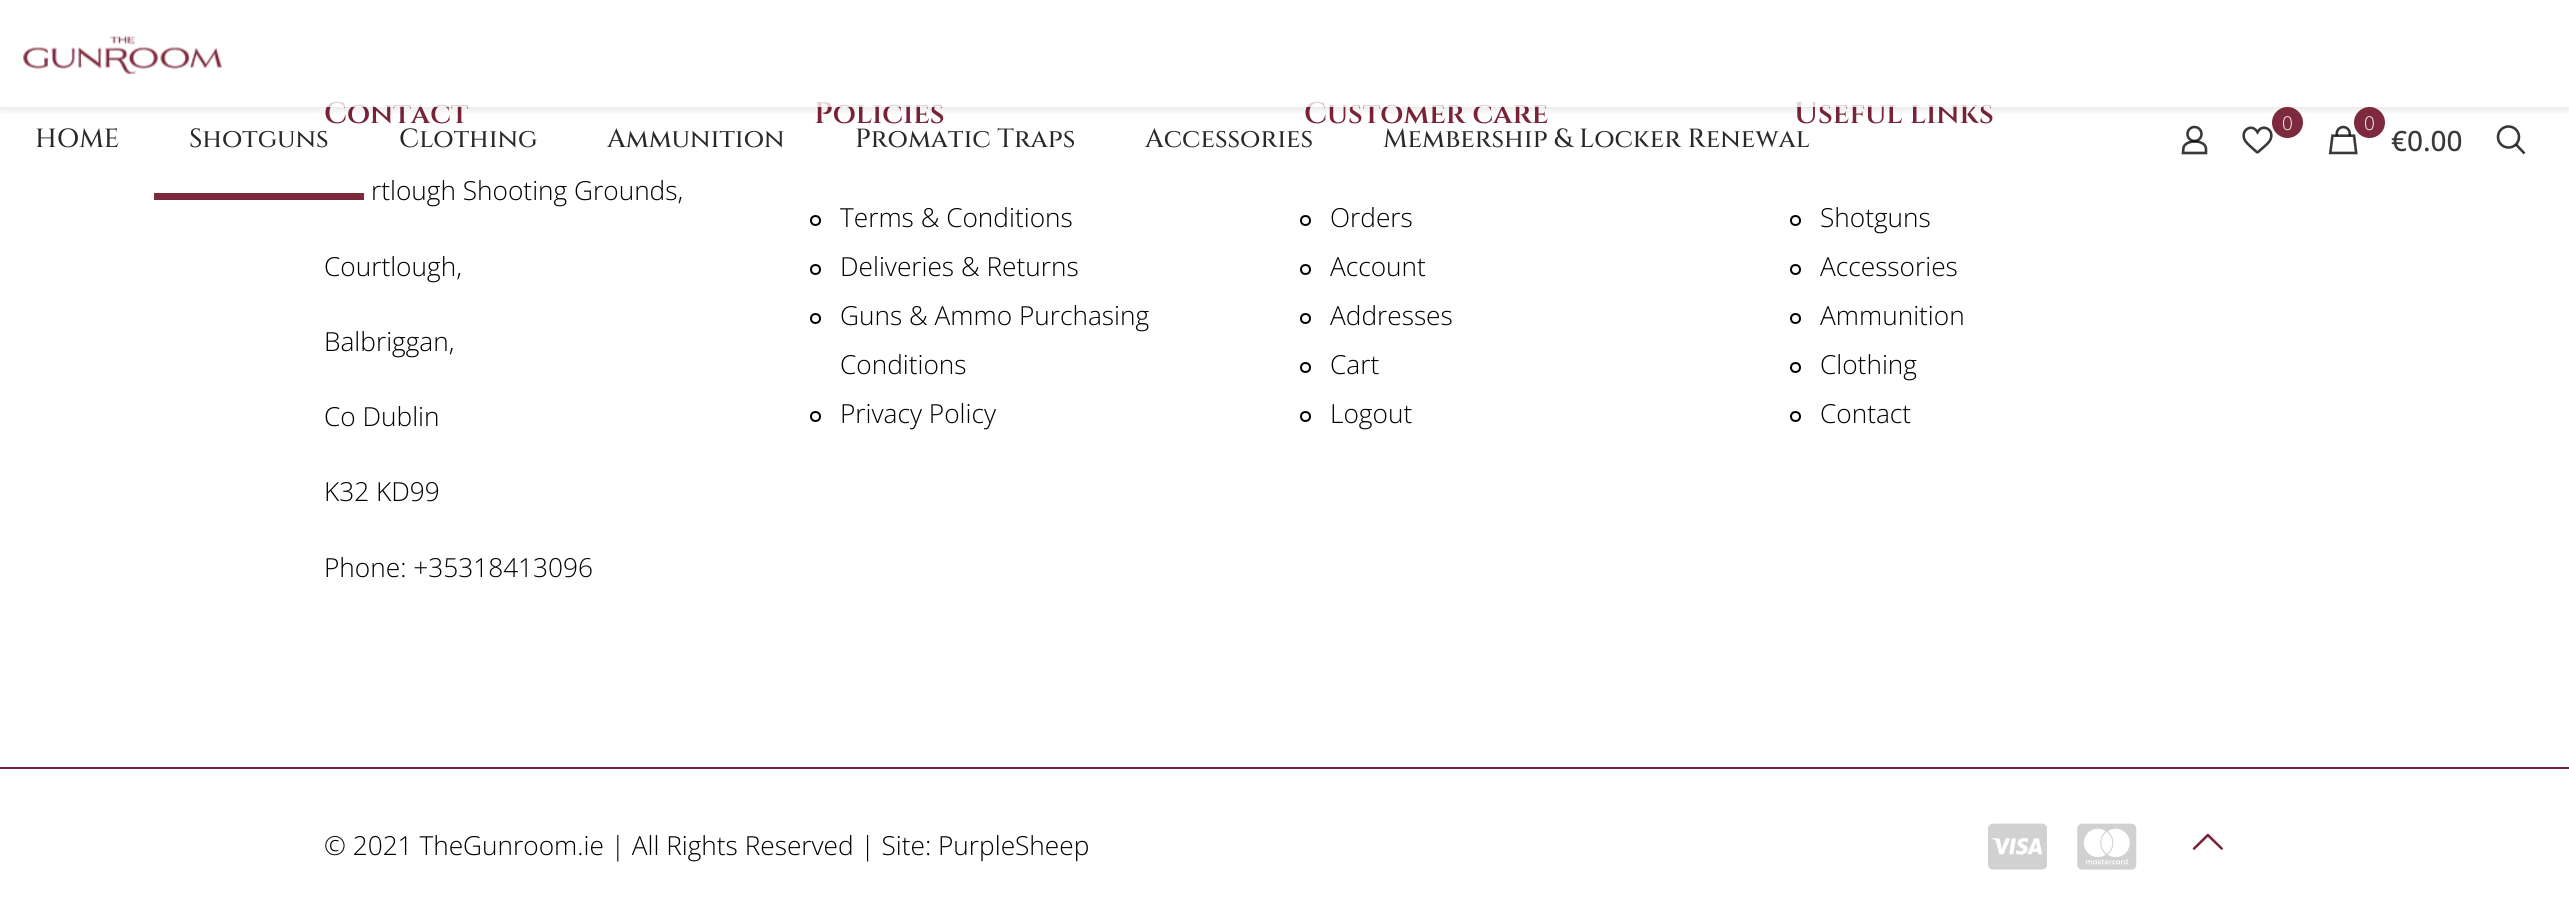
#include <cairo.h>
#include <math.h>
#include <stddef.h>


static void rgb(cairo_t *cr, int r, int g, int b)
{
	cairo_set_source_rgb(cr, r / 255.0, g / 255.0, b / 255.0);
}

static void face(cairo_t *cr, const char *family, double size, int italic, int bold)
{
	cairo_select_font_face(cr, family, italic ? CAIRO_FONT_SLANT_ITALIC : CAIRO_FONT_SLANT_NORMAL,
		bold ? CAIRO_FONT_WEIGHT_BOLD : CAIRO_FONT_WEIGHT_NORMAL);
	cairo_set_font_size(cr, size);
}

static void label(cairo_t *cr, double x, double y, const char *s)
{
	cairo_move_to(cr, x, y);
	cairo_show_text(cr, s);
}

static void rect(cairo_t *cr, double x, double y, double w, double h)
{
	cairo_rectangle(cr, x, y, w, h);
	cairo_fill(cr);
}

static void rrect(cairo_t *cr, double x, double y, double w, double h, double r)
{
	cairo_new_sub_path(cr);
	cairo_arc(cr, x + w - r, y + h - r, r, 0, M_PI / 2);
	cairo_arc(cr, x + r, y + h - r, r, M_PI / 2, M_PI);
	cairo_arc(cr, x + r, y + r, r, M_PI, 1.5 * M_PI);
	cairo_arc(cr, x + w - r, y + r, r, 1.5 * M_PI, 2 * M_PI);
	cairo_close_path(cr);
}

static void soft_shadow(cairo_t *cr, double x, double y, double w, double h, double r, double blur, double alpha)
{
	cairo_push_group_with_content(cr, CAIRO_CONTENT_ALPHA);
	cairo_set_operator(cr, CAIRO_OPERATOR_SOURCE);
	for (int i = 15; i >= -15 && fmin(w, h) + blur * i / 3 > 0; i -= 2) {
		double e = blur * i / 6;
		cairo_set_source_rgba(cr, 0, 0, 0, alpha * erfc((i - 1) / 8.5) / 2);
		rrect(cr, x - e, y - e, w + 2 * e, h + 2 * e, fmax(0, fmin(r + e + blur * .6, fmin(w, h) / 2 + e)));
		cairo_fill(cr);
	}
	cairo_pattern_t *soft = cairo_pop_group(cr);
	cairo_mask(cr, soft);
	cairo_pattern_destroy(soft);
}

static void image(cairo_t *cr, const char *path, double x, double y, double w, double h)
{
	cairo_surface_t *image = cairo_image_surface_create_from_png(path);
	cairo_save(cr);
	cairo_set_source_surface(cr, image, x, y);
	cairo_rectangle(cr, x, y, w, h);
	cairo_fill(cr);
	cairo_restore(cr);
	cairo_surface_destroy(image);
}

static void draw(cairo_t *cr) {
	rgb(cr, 255, 255, 255);
	cairo_paint(cr);
	face(cr, "Cinzel SemiBold", 29.75, 0, 0);
	rgb(cr, 121, 35, 56);
	label(cr, 324, 123, "Contact");
	face(cr, "Open Sans Light", 26.25, 0, 0);
	rgb(cr, 0, 0, 0);
	label(cr, 371, 200, "rtlough Shooting Grounds,");
	label(cr, 324, 276, "Courtlough,");
	label(cr, 324, 351, "Balbriggan,");
	label(cr, 324, 426, "Co Dublin");
	label(cr, 324, 501, "K32 KD99");
	label(cr, 324, 577, "Phone: +35318413096");
	face(cr, "Cinzel SemiBold", 29.75, 0, 0);
	rgb(cr, 121, 35, 56);
	label(cr, 814, 123, "Policies");
	cairo_new_path(cr);
	cairo_arc(cr, 815.5, 220.5, 4.5, 0, 2 * M_PI);
	rgb(cr, 0, 0, 0);
	cairo_stroke(cr);
	face(cr, "Open Sans Light", 26.25, 0, 0);
	label(cr, 840, 227, "Terms & Conditions");
	cairo_new_path(cr);
	cairo_arc(cr, 815.5, 269.5, 4.5, 0, 2 * M_PI);
	cairo_stroke(cr);
	label(cr, 840, 276, "Deliveries & Returns");
	cairo_new_path(cr);
	cairo_arc(cr, 815.5, 318.5, 4.5, 0, 2 * M_PI);
	cairo_stroke(cr);
	label(cr, 840, 325, "Guns & Ammo Purchasing");
	label(cr, 840, 374, "Conditions");
	cairo_new_path(cr);
	cairo_arc(cr, 815.5, 416.5, 4.5, 0, 2 * M_PI);
	cairo_stroke(cr);
	label(cr, 840, 423, "Privacy Policy");
	face(cr, "Cinzel SemiBold", 29.75, 0, 0);
	rgb(cr, 121, 35, 56);
	label(cr, 1304, 123, "Customer care");
	cairo_new_path(cr);
	cairo_arc(cr, 1305.5, 220.5, 4.5, 0, 2 * M_PI);
	rgb(cr, 0, 0, 0);
	cairo_stroke(cr);
	face(cr, "Open Sans Light", 26.25, 0, 0);
	label(cr, 1330, 227, "Orders");
	cairo_new_path(cr);
	cairo_arc(cr, 1305.5, 269.5, 4.5, 0, 2 * M_PI);
	cairo_stroke(cr);
	label(cr, 1330, 276, "Account");
	cairo_new_path(cr);
	cairo_arc(cr, 1305.5, 318.5, 4.5, 0, 2 * M_PI);
	cairo_stroke(cr);
	label(cr, 1330, 325, "Addresses");
	cairo_new_path(cr);
	cairo_arc(cr, 1305.5, 367.5, 4.5, 0, 2 * M_PI);
	cairo_stroke(cr);
	label(cr, 1330, 374, "Cart");
	cairo_new_path(cr);
	cairo_arc(cr, 1305.5, 416.5, 4.5, 0, 2 * M_PI);
	cairo_stroke(cr);
	label(cr, 1330, 423, "Logout");
	face(cr, "Cinzel SemiBold", 29.75, 0, 0);
	rgb(cr, 121, 35, 56);
	label(cr, 1794, 123, "Useful links");
	cairo_new_path(cr);
	cairo_arc(cr, 1795.5, 220.5, 4.5, 0, 2 * M_PI);
	rgb(cr, 0, 0, 0);
	cairo_stroke(cr);
	face(cr, "Open Sans Light", 26.25, 0, 0);
	label(cr, 1820, 227, "Shotguns");
	cairo_new_path(cr);
	cairo_arc(cr, 1795.5, 269.5, 4.5, 0, 2 * M_PI);
	cairo_stroke(cr);
	label(cr, 1820, 276, "Accessories");
	cairo_new_path(cr);
	cairo_arc(cr, 1795.5, 318.5, 4.5, 0, 2 * M_PI);
	cairo_stroke(cr);
	label(cr, 1820, 325, "Ammunition");
	cairo_new_path(cr);
	cairo_arc(cr, 1795.5, 367.5, 4.5, 0, 2 * M_PI);
	cairo_stroke(cr);
	label(cr, 1820, 374, "Clothing");
	cairo_new_path(cr);
	cairo_arc(cr, 1795.5, 416.5, 4.5, 0, 2 * M_PI);
	cairo_stroke(cr);
	label(cr, 1820, 423, "Contact");
	rgb(cr, 121, 35, 56);
	rect(cr, 0, 767, 2569, 2);
	rgb(cr, 0, 0, 0);
	label(cr, 324, 855, "© 2021 TheGunroom.ie | All Rights Reserved | Site: PurpleSheep");
	image(cr, "image0.png", 1988, 823, 59, 47);
	image(cr, "image1.png", 2077, 823, 60, 47);
	image(cr, "image2.png", 2192, 833, 31, 17);
	cairo_save(cr);
	cairo_rectangle(cr, 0, 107, 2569, 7);
	cairo_clip(cr);
	rgb(cr, 0, 0, 0);
	soft_shadow(cr, 0, 4, 2569, 106, 0, 4.5, 0.1);
	cairo_restore(cr);
	cairo_set_source_rgba(cr, 1, 1, 1, 0.78);
	rect(cr, 2, 101, 2565, 6);
	image(cr, "image3.png", 23, 36, 199, 39);
	face(cr, "Cinzel Medium", 26.25, 0, 0);
	rgb(cr, 41, 41, 41);
	label(cr, 35, 147, "HOME");
	label(cr, 189, 147, "Shotguns");
	cairo_set_source_rgba(cr, 0.475, 0.137, 0.22, 0.97);
	rect(cr, 154, 193, 210, 7);
	rgb(cr, 41, 41, 41);
	label(cr, 399, 147, "Clothing");
	label(cr, 607, 147, "Ammunition");
	label(cr, 855, 147, "Promatic Traps");
	label(cr, 1145, 147, "Accessories");
	label(cr, 1383, 147, "Membership & Locker Renewal");
	cairo_new_path(cr);
	cairo_arc(cr, 2194.5, 134, 7, 0, 2 * M_PI);
	rgb(cr, 57, 57, 57);
	cairo_set_line_width(cr, 2.6);
	cairo_stroke(cr);
	cairo_new_path(cr);
	cairo_move_to(cr, 2206, 149);
	cairo_line_to(cr, 2206, 153);
	cairo_line_to(cr, 2183, 153);
	cairo_line_to(cr, 2183.5, 147.5);
	cairo_curve_to(cr, 2186, 139, 2206, 139.5, 2206, 149);
	cairo_close_path(cr);
	cairo_set_source_rgba(cr, 0.031, 0.031, 0.031, 0.8);
	cairo_stroke(cr);
	image(cr, "image4.png", 2242, 126, 31, 28);
	rgb(cr, 125, 42, 62);
	cairo_arc(cr, 2287.5, 122.5, 15.5, 0, 2 * M_PI);
	cairo_fill(cr);
	face(cr, "Open Sans Light", 19, 0, 0);
	rgb(cr, 255, 255, 255);
	label(cr, 2282, 130, "0");
	image(cr, "image5.png", 2328, 125, 30, 30);
	rgb(cr, 125, 42, 62);
	cairo_arc(cr, 2369.5, 122.5, 15.5, 0, 2 * M_PI);
	cairo_fill(cr);
	rgb(cr, 255, 255, 255);
	label(cr, 2364, 130, "0");
	face(cr, "Open Sans Medium", 28, 0, 0);
	rgb(cr, 57, 57, 57);
	label(cr, 2391, 151, "€0.00");
	cairo_new_path(cr);
	cairo_arc(cr, 2508.5, 137, 10.5, 0, 2 * M_PI);
	cairo_stroke(cr);
	cairo_new_path(cr);
	cairo_move_to(cr, 2516, 144.5);
	cairo_line_to(cr, 2524.5, 153.5);
	cairo_set_source_rgba(cr, 0.031, 0.031, 0.031, 0.8);
	cairo_stroke(cr);
}

int main(void) {
	cairo_surface_t *surface = cairo_image_surface_create(CAIRO_FORMAT_RGB24, 2569, 914);
	cairo_t *cr = cairo_create(surface);
	cairo_font_options_t *options = cairo_font_options_create();
	cairo_font_options_set_hint_metrics(options, CAIRO_HINT_METRICS_OFF);
	cairo_font_options_set_hint_style(options, CAIRO_HINT_STYLE_NONE);
	cairo_set_font_options(cr, options);
	cairo_set_miter_limit(cr, 4);
	draw(cr);
	cairo_surface_write_to_png(surface, "render.png");
	cairo_font_options_destroy(options);
	cairo_destroy(cr);
	cairo_surface_destroy(surface);
	return 0;
}
